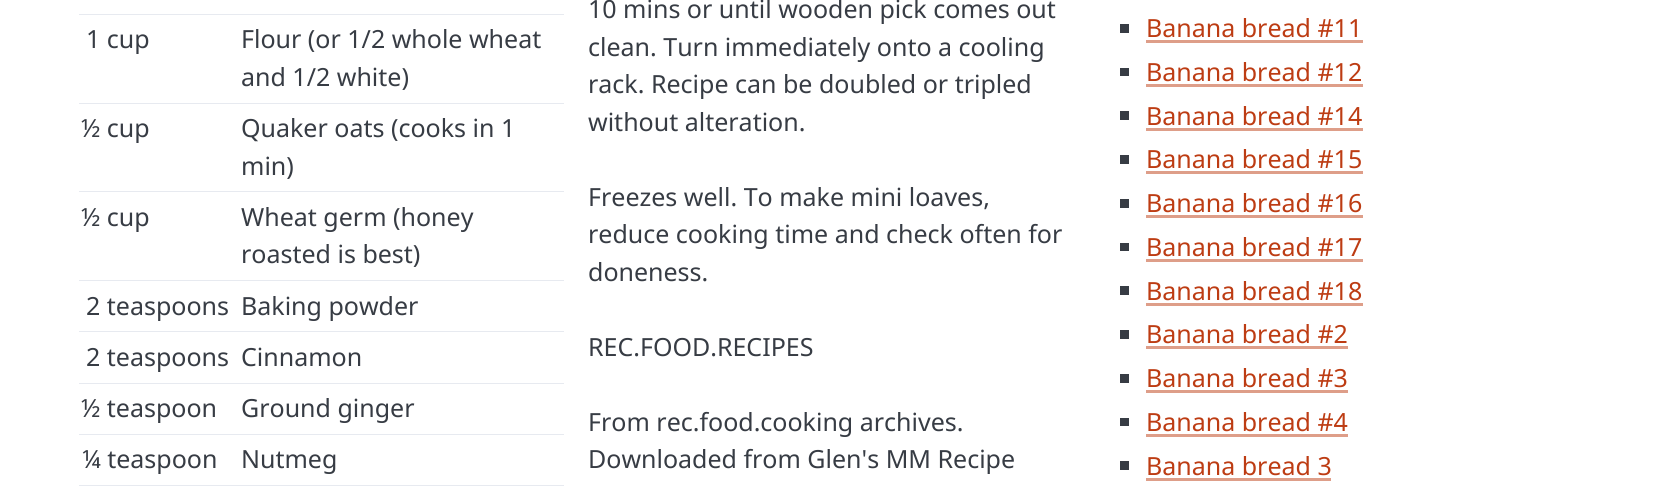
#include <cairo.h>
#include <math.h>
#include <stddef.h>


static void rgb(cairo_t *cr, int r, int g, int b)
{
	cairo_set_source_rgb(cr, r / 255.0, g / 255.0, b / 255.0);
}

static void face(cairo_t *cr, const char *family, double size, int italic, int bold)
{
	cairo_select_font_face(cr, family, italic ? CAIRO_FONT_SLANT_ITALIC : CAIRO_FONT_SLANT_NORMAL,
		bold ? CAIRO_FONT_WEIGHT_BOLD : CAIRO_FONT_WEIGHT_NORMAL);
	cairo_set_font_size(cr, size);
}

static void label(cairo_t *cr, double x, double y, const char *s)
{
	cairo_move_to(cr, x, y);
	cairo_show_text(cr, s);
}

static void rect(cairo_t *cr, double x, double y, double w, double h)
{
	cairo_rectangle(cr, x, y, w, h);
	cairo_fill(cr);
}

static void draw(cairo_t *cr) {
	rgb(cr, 255, 255, 255);
	cairo_paint(cr);
	rgb(cr, 231, 234, 240);
	rect(cr, 79, 14, 485, 1);
	face(cr, "Noto Sans", 25, 0, 0);
	rgb(cr, 55, 60, 68);
	label(cr, 86, 48, "1 cup");
	rgb(cr, 231, 234, 240);
	rect(cr, 79, 103, 485, 1);
	rgb(cr, 55, 60, 68);
	label(cr, 241, 48, "Flour (or 1/2 whole wheat");
	label(cr, 241, 86, "and 1/2 white)");
	label(cr, 81, 137, "½ cup");
	rgb(cr, 231, 234, 240);
	rect(cr, 79, 191, 485, 1);
	rgb(cr, 55, 60, 68);
	label(cr, 241, 137, "Quaker oats (cooks in 1");
	label(cr, 241, 175, "min)");
	label(cr, 81, 226, "½ cup");
	rgb(cr, 231, 234, 240);
	rect(cr, 79, 280, 485, 1);
	rgb(cr, 55, 60, 68);
	label(cr, 241, 226, "Wheat germ (honey");
	label(cr, 241, 263, "roasted is best)");
	label(cr, 86, 315, "2 teaspoons");
	rgb(cr, 231, 234, 240);
	rect(cr, 79, 331, 485, 1);
	rgb(cr, 55, 60, 68);
	label(cr, 241, 315, "Baking powder");
	label(cr, 86, 366, "2 teaspoons");
	rgb(cr, 231, 234, 240);
	rect(cr, 79, 383, 485, 1);
	rgb(cr, 55, 60, 68);
	label(cr, 241, 366, "Cinnamon");
	label(cr, 81, 417, "½ teaspoon");
	rgb(cr, 231, 234, 240);
	rect(cr, 79, 434, 485, 1);
	rgb(cr, 55, 60, 68);
	label(cr, 241, 417, "Ground ginger");
	label(cr, 82, 468, "¼ teaspoon");
	rgb(cr, 231, 234, 240);
	rect(cr, 79, 485, 485, 1);
	rgb(cr, 55, 60, 68);
	label(cr, 241, 468, "Nutmeg");
	label(cr, 588, 18, "10 mins or until wooden pick comes out");
	label(cr, 588, 56, "clean. Turn immediately onto a cooling");
	label(cr, 588, 93, "rack. Recipe can be doubled or tripled");
	label(cr, 588, 131, "without alteration.");
	label(cr, 588, 206, "Freezes well. To make mini loaves,");
	label(cr, 588, 243, "reduce cooking time and check often for");
	label(cr, 588, 281, "doneness.");
	label(cr, 588, 356, "REC.FOOD.RECIPES");
	label(cr, 588, 431, "From rec.food.cooking archives.");
	label(cr, 588, 468, "Downloaded from Glen's MM Recipe");
	rect(cr, 1120, 24, 9, 9);
	rgb(cr, 189, 60, 19);
	label(cr, 1146, 37, "Banana bread #11");
	rgb(cr, 222, 158, 137);
	rect(cr, 1146, 40, 217, 3);
	rgb(cr, 55, 60, 68);
	rect(cr, 1120, 68, 9, 8);
	rgb(cr, 189, 60, 19);
	label(cr, 1146, 81, "Banana bread #12");
	rgb(cr, 222, 158, 137);
	rect(cr, 1146, 84, 217, 3);
	rgb(cr, 55, 60, 68);
	rect(cr, 1120, 111, 9, 9);
	rgb(cr, 189, 60, 19);
	label(cr, 1146, 125, "Banana bread #14");
	rgb(cr, 222, 158, 137);
	rect(cr, 1146, 128, 217, 3);
	rgb(cr, 55, 60, 68);
	rect(cr, 1120, 155, 9, 9);
	rgb(cr, 189, 60, 19);
	label(cr, 1146, 168, "Banana bread #15");
	rgb(cr, 222, 158, 137);
	rect(cr, 1146, 171, 217, 3);
	rgb(cr, 55, 60, 68);
	rect(cr, 1120, 199, 9, 9);
	rgb(cr, 189, 60, 19);
	label(cr, 1146, 212, "Banana bread #16");
	rgb(cr, 222, 158, 137);
	rect(cr, 1146, 215, 217, 3);
	rgb(cr, 55, 60, 68);
	rect(cr, 1120, 243, 9, 8);
	rgb(cr, 189, 60, 19);
	label(cr, 1146, 256, "Banana bread #17");
	rgb(cr, 222, 158, 137);
	rect(cr, 1146, 259, 217, 3);
	rgb(cr, 55, 60, 68);
	rect(cr, 1120, 286, 9, 9);
	rgb(cr, 189, 60, 19);
	label(cr, 1146, 300, "Banana bread #18");
	rgb(cr, 222, 158, 137);
	rect(cr, 1146, 303, 217, 3);
	rgb(cr, 55, 60, 68);
	rect(cr, 1120, 330, 9, 9);
	rgb(cr, 189, 60, 19);
	label(cr, 1146, 343, "Banana bread #2");
	rgb(cr, 222, 158, 137);
	rect(cr, 1146, 346, 202, 3);
	rgb(cr, 55, 60, 68);
	rect(cr, 1120, 374, 9, 9);
	rgb(cr, 189, 60, 19);
	label(cr, 1146, 387, "Banana bread #3");
	rgb(cr, 222, 158, 137);
	rect(cr, 1146, 390, 202, 3);
	rgb(cr, 55, 60, 68);
	rect(cr, 1120, 418, 9, 8);
	rgb(cr, 189, 60, 19);
	label(cr, 1146, 431, "Banana bread #4");
	rgb(cr, 222, 158, 137);
	rect(cr, 1146, 434, 202, 3);
	rgb(cr, 55, 60, 68);
	rect(cr, 1120, 461, 9, 9);
	rgb(cr, 189, 60, 19);
	label(cr, 1146, 475, "Banana bread 3");
	rgb(cr, 222, 158, 137);
	rect(cr, 1146, 478, 185, 3);
}

int main(void) {
	cairo_surface_t *surface = cairo_image_surface_create(CAIRO_FORMAT_RGB24, 1658, 495);
	cairo_t *cr = cairo_create(surface);
	cairo_font_options_t *options = cairo_font_options_create();
	cairo_font_options_set_hint_metrics(options, CAIRO_HINT_METRICS_OFF);
	cairo_font_options_set_hint_style(options, CAIRO_HINT_STYLE_NONE);
	cairo_set_font_options(cr, options);
	cairo_set_miter_limit(cr, 4);
	draw(cr);
	cairo_surface_write_to_png(surface, "render.png");
	cairo_font_options_destroy(options);
	cairo_destroy(cr);
	cairo_surface_destroy(surface);
	return 0;
}
